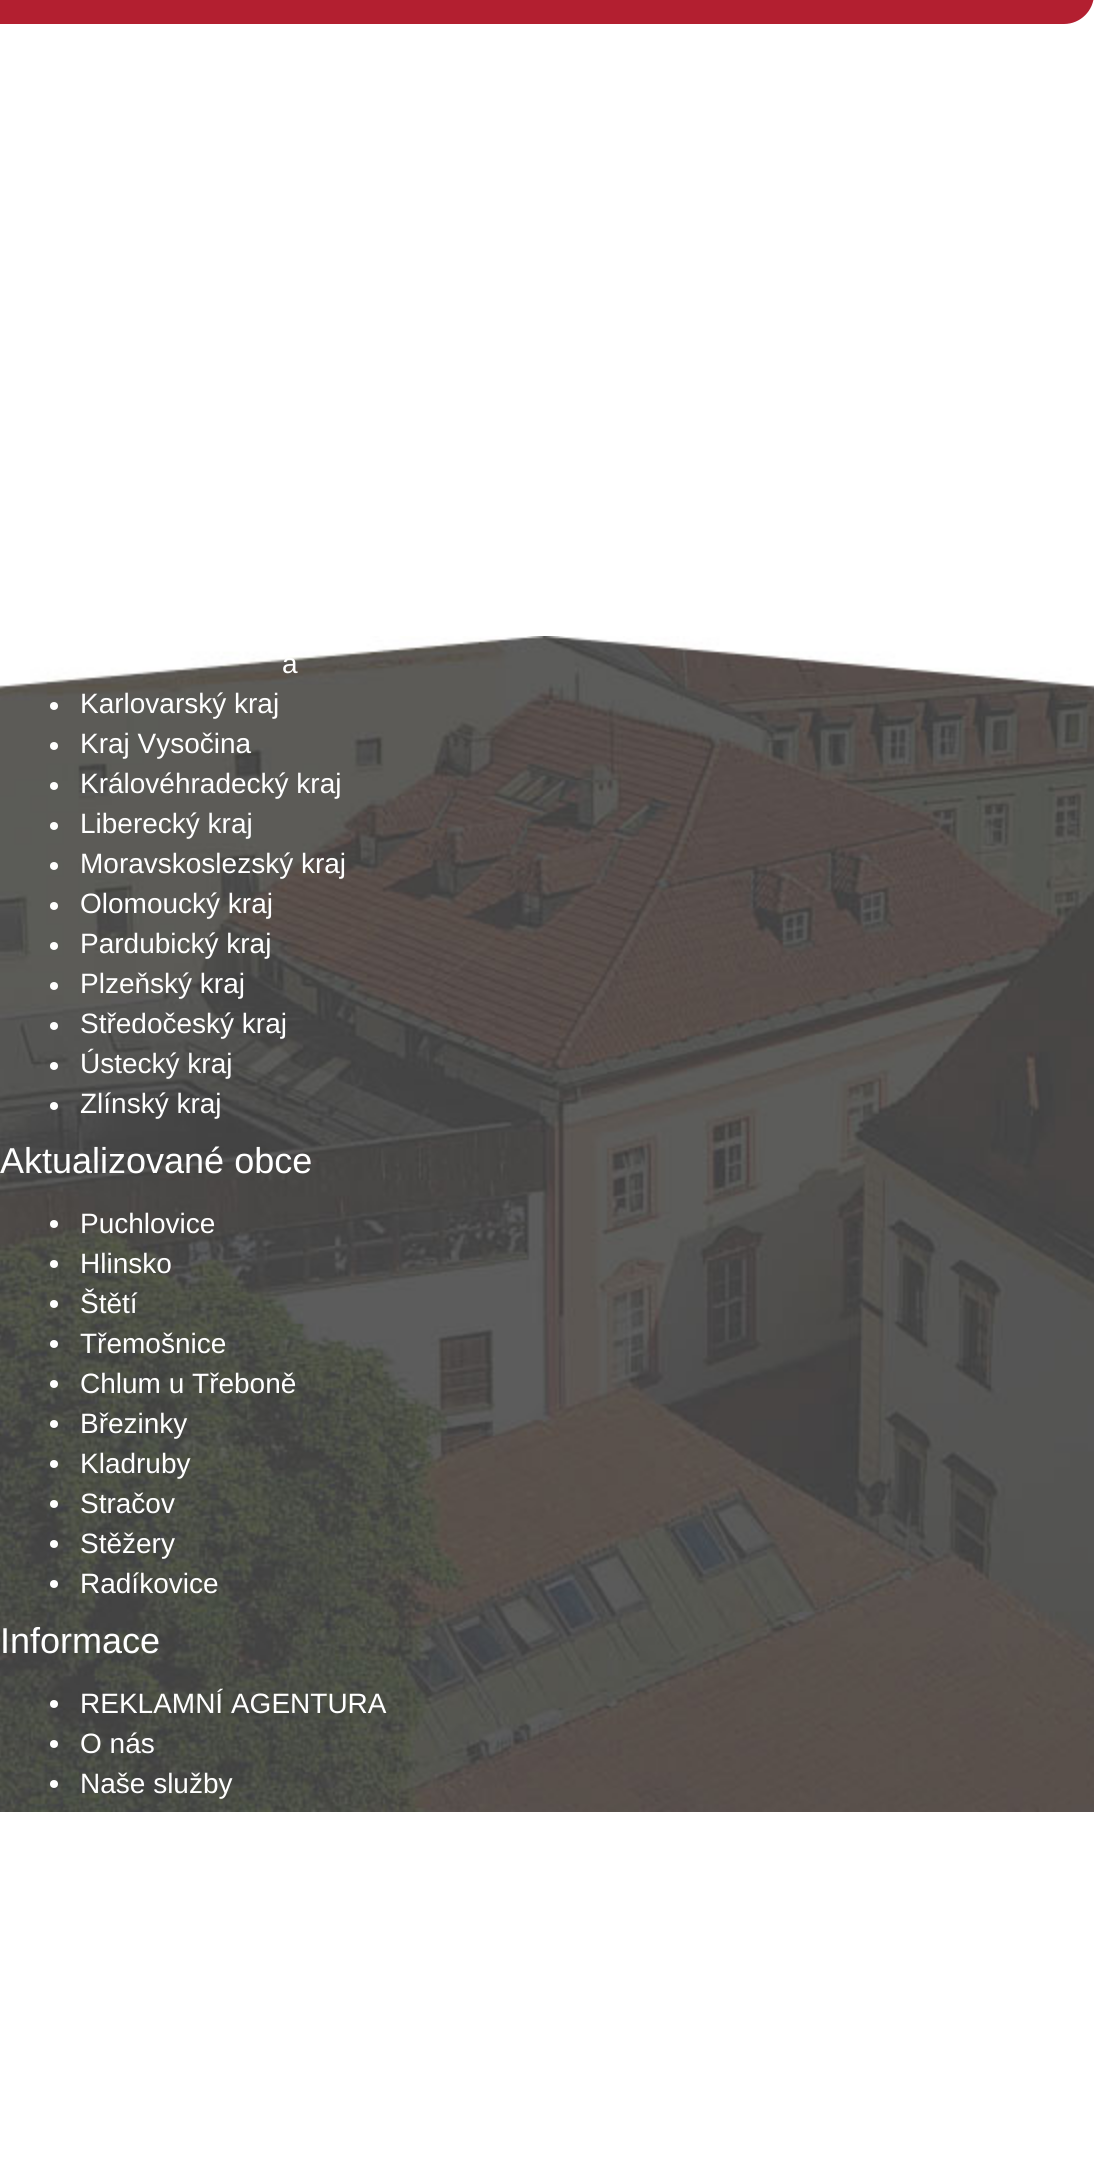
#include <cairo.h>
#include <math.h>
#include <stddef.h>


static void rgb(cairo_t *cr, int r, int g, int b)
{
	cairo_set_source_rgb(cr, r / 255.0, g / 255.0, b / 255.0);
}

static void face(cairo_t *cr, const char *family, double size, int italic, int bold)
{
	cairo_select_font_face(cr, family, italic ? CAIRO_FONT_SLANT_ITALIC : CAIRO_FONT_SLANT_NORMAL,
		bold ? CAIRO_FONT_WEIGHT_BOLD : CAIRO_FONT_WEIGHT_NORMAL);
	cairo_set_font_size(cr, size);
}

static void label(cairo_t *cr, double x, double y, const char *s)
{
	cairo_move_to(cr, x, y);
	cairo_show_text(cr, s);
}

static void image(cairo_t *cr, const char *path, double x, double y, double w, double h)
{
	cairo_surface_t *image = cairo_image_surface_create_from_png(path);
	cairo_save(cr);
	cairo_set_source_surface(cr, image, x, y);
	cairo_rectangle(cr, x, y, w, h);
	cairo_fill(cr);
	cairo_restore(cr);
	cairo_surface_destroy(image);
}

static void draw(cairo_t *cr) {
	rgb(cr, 255, 255, 255);
	cairo_paint(cr);
	rgb(cr, 179, 31, 48);
	cairo_new_path(cr);
	cairo_move_to(cr, 0, -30);
	cairo_line_to(cr, 1094, -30);
	cairo_line_to(cr, 1094, -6);
	cairo_curve_to(cr, 1094, 10.5, 1080.5, 24, 1064, 24);
	cairo_line_to(cr, 0, 24);
	cairo_close_path(cr);
	cairo_fill(cr);
	image(cr, "image0.png", 0, 636, 1094, 1176);
	face(cr, "Liberation Sans", 28, 0, 0);
	rgb(cr, 255, 255, 255);
	label(cr, 282, 673, "a");
	cairo_new_path(cr);
	cairo_arc(cr, 54, 706, 4, 0, 2 * M_PI);
	cairo_fill(cr);
	label(cr, 80, 713, "Karlovarský kraj");
	cairo_new_path(cr);
	cairo_arc(cr, 54, 746, 4, 0, 2 * M_PI);
	cairo_fill(cr);
	label(cr, 80, 753, "Kraj Vysočina");
	cairo_new_path(cr);
	cairo_arc(cr, 54, 786, 4, 0, 2 * M_PI);
	cairo_fill(cr);
	label(cr, 80, 793, "Královéhradecký kraj");
	cairo_new_path(cr);
	cairo_arc(cr, 54, 826, 4, 0, 2 * M_PI);
	cairo_fill(cr);
	label(cr, 80, 833, "Liberecký kraj");
	cairo_new_path(cr);
	cairo_arc(cr, 54, 866, 4, 0, 2 * M_PI);
	cairo_fill(cr);
	label(cr, 80, 873, "Moravskoslezský kraj");
	cairo_new_path(cr);
	cairo_arc(cr, 54, 906, 4, 0, 2 * M_PI);
	cairo_fill(cr);
	label(cr, 80, 913, "Olomoucký kraj");
	cairo_new_path(cr);
	cairo_arc(cr, 54, 946, 4, 0, 2 * M_PI);
	cairo_fill(cr);
	label(cr, 80, 953, "Pardubický kraj");
	cairo_new_path(cr);
	cairo_arc(cr, 54, 986, 4, 0, 2 * M_PI);
	cairo_fill(cr);
	label(cr, 80, 993, "Plzeňský kraj");
	cairo_new_path(cr);
	cairo_arc(cr, 54, 1026, 4, 0, 2 * M_PI);
	cairo_fill(cr);
	label(cr, 80, 1033, "Středočeský kraj");
	cairo_new_path(cr);
	cairo_arc(cr, 54, 1066, 4, 0, 2 * M_PI);
	cairo_fill(cr);
	label(cr, 80, 1073, "Ústecký kraj");
	cairo_new_path(cr);
	cairo_arc(cr, 54, 1106, 4, 0, 2 * M_PI);
	cairo_fill(cr);
	label(cr, 80, 1113, "Zlínský kraj");
	face(cr, "Liberation Sans", 36, 0, 0);
	label(cr, 0, 1173, "Aktualizované obce");
	cairo_new_path(cr);
	cairo_arc(cr, 54, 1224, 4, 0, 2 * M_PI);
	cairo_fill(cr);
	face(cr, "Liberation Sans", 28, 0, 0);
	label(cr, 80, 1233, "Puchlovice");
	cairo_new_path(cr);
	cairo_arc(cr, 54, 1264, 4, 0, 2 * M_PI);
	cairo_fill(cr);
	label(cr, 80, 1273, "Hlinsko");
	cairo_new_path(cr);
	cairo_arc(cr, 54, 1304, 4, 0, 2 * M_PI);
	cairo_fill(cr);
	label(cr, 80, 1313, "Štětí");
	cairo_new_path(cr);
	cairo_arc(cr, 54, 1344, 4, 0, 2 * M_PI);
	cairo_fill(cr);
	label(cr, 80, 1353, "Třemošnice");
	cairo_new_path(cr);
	cairo_arc(cr, 54, 1384, 4, 0, 2 * M_PI);
	cairo_fill(cr);
	label(cr, 80, 1393, "Chlum u Třeboně");
	cairo_new_path(cr);
	cairo_arc(cr, 54, 1424, 4, 0, 2 * M_PI);
	cairo_fill(cr);
	label(cr, 80, 1433, "Březinky");
	cairo_new_path(cr);
	cairo_arc(cr, 54, 1464, 4, 0, 2 * M_PI);
	cairo_fill(cr);
	label(cr, 80, 1473, "Kladruby");
	cairo_new_path(cr);
	cairo_arc(cr, 54, 1504, 4, 0, 2 * M_PI);
	cairo_fill(cr);
	label(cr, 80, 1513, "Stračov");
	cairo_new_path(cr);
	cairo_arc(cr, 54, 1544, 4, 0, 2 * M_PI);
	cairo_fill(cr);
	label(cr, 80, 1553, "Stěžery");
	cairo_new_path(cr);
	cairo_arc(cr, 54, 1584, 4, 0, 2 * M_PI);
	cairo_fill(cr);
	label(cr, 80, 1593, "Radíkovice");
	face(cr, "Liberation Sans", 36, 0, 0);
	label(cr, 0, 1653, "Informace");
	cairo_new_path(cr);
	cairo_arc(cr, 54, 1704, 4, 0, 2 * M_PI);
	cairo_fill(cr);
	face(cr, "Liberation Sans", 28, 0, 0);
	label(cr, 80, 1713, "REKLAMNÍ AGENTURA");
	cairo_new_path(cr);
	cairo_arc(cr, 54, 1744, 4, 0, 2 * M_PI);
	cairo_fill(cr);
	label(cr, 80, 1753, "O nás");
	cairo_new_path(cr);
	cairo_arc(cr, 54, 1784, 4, 0, 2 * M_PI);
	cairo_fill(cr);
	label(cr, 80, 1793, "Naše služby");
}

int main(void) {
	cairo_surface_t *surface = cairo_image_surface_create(CAIRO_FORMAT_RGB24, 1094, 2164);
	cairo_t *cr = cairo_create(surface);
	cairo_font_options_t *options = cairo_font_options_create();
	cairo_font_options_set_hint_metrics(options, CAIRO_HINT_METRICS_OFF);
	cairo_font_options_set_hint_style(options, CAIRO_HINT_STYLE_NONE);
	cairo_set_font_options(cr, options);
	cairo_set_miter_limit(cr, 4);
	draw(cr);
	cairo_surface_write_to_png(surface, "render.png");
	cairo_font_options_destroy(options);
	cairo_destroy(cr);
	cairo_surface_destroy(surface);
	return 0;
}
